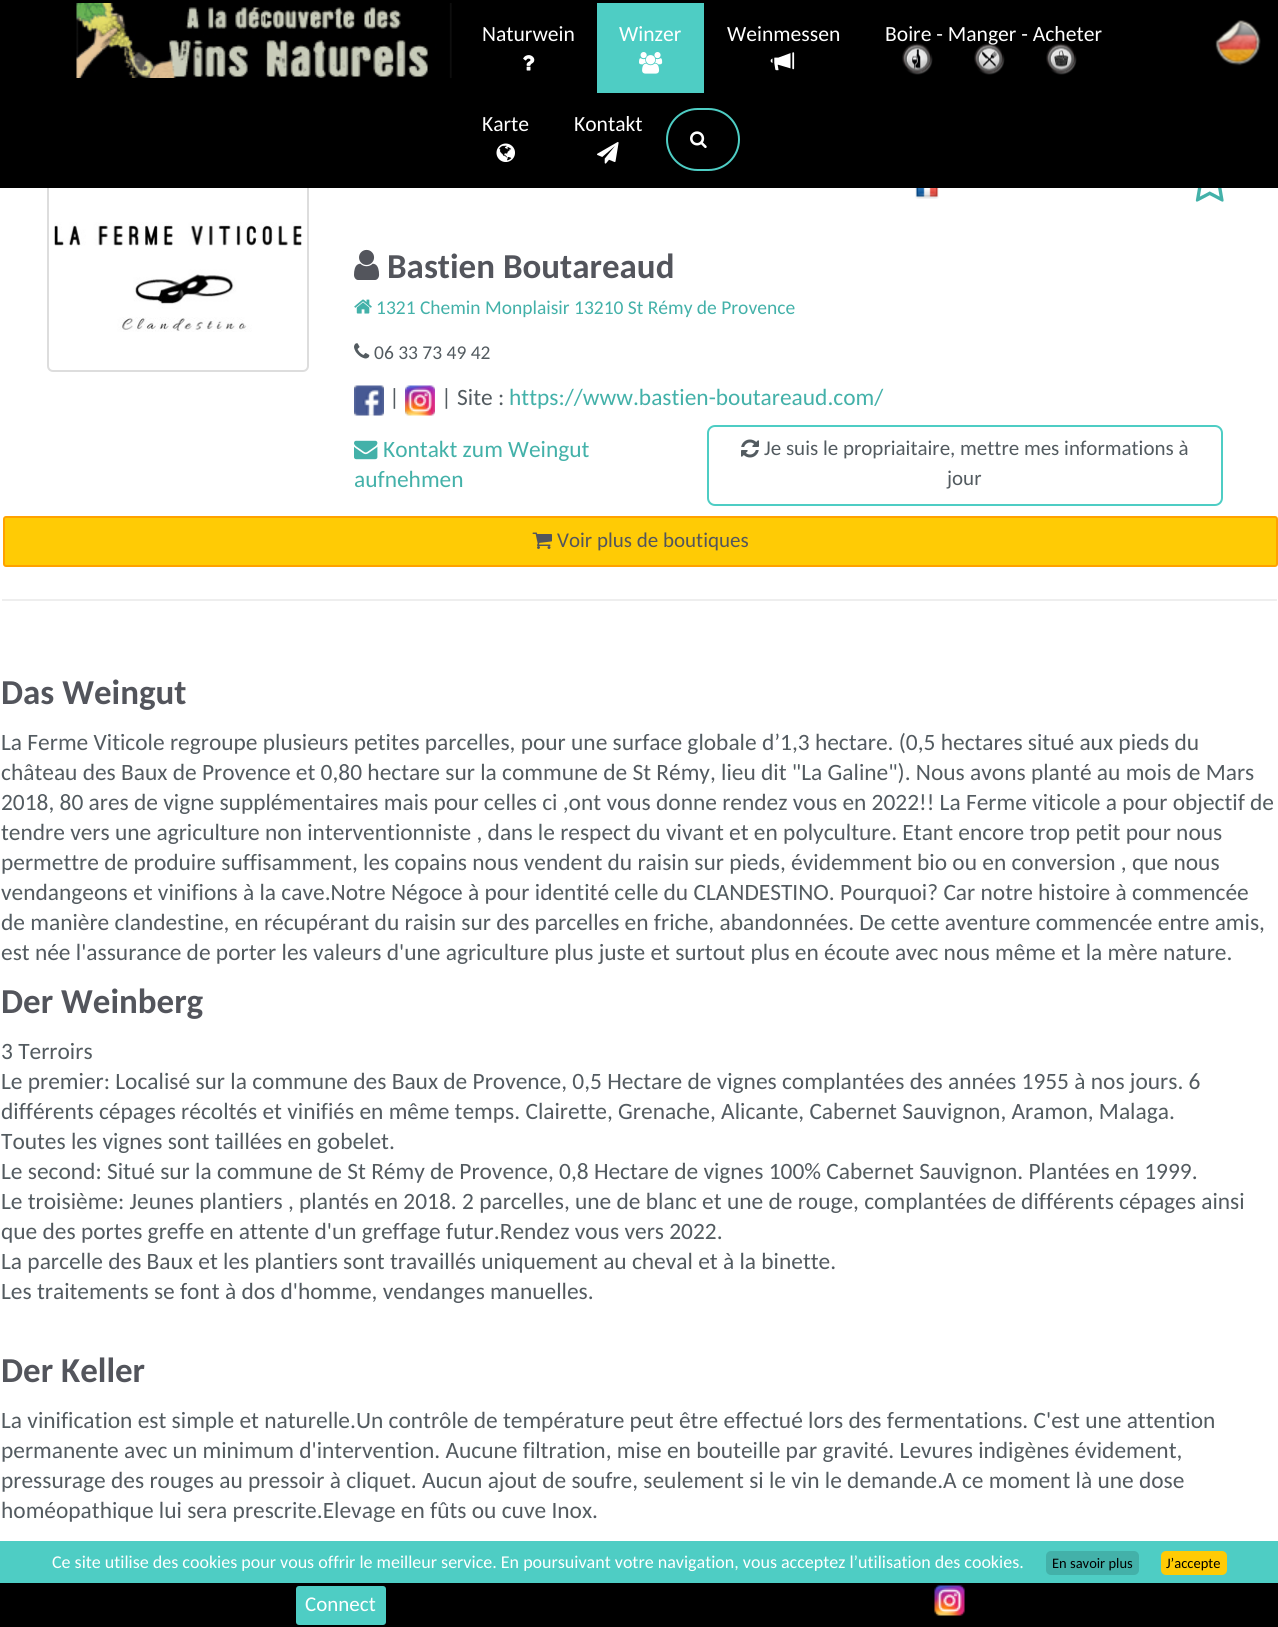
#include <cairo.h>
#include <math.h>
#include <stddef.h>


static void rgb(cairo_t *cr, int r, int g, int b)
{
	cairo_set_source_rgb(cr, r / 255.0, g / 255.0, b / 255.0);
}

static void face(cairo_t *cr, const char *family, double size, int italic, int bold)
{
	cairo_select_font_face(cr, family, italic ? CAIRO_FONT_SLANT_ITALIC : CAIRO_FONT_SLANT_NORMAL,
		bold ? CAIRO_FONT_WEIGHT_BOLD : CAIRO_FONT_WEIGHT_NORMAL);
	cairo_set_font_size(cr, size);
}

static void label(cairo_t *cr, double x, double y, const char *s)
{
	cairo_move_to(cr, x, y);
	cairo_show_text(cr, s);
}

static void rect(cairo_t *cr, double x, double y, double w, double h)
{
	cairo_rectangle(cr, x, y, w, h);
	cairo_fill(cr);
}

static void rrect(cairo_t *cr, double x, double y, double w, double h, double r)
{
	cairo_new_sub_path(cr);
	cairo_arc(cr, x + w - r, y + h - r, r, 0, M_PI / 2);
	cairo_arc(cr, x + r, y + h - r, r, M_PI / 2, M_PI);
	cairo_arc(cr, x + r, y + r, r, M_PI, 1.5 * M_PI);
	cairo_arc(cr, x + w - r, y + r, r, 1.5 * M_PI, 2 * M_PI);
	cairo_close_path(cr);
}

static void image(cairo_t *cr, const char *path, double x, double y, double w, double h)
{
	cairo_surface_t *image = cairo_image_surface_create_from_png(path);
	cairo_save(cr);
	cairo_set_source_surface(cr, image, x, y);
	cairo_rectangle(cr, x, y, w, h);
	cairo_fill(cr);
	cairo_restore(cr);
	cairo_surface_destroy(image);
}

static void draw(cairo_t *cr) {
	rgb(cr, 255, 255, 255);
	cairo_paint(cr);
	rrect(cr, 48, 160, 260, 211, 5);
	rgb(cr, 221, 221, 221);
	cairo_stroke(cr);
	rgb(cr, 0, 0, 0);
	rect(cr, 0, 0, 1278, 188);
	image(cr, "image0.png", 76, 3, 376, 75);
	face(cr, "Carlito", 21.6, 0, 0);
	rgb(cr, 255, 255, 255);
	label(cr, 482, 41, "Naturwein");
	image(cr, "image1.png", 523, 55, 12, 16);
	rgb(cr, 78, 205, 196);
	rect(cr, 597, 3, 107, 90);
	rgb(cr, 255, 255, 255);
	label(cr, 619, 41, "Winzer");
	image(cr, "image2.png", 639, 52, 24, 22);
	label(cr, 727, 41, "Weinmessen");
	image(cr, "image3.png", 770, 52, 25, 19);
	label(cr, 885, 41, "Boire - Manger - Acheter");
	image(cr, "image4.png", 902, 43, 31, 32);
	image(cr, "image5.png", 974, 43, 31, 32);
	image(cr, "image6.png", 1046, 43, 31, 32);
	label(cr, 482, 131, "Karte");
	image(cr, "image7.png", 496, 143, 19, 19);
	label(cr, 574, 131, "Kontakt");
	image(cr, "image8.png", 597, 142, 22, 22);
	rrect(cr, 667, 109, 72, 61, 30.5);
	rgb(cr, 78, 205, 196);
	cairo_stroke(cr);
	image(cr, "image9.png", 690, 131, 17, 18);
	image(cr, "image10.png", 1215, 20, 46, 46);
	image(cr, "image11.png", 54, 222, 248, 110);
	image(cr, "image12.png", 915, 188, 24, 11);
	image(cr, "image13.png", 1195, 188, 29, 14);
	image(cr, "image14.png", 354, 249, 26, 31);
	face(cr, "Carlito", 35, 0, 1);
	rgb(cr, 83, 85, 92);
	label(cr, 387, 278, "Bastien Boutareaud");
	image(cr, "image15.png", 354, 299, 18, 15);
	face(cr, "Carlito", 19.5, 0, 0);
	rgb(cr, 67, 177, 169);
	label(cr, 376, 314, "1321 Chemin Monplaisir 13210 St Rémy de Provence");
	image(cr, "image16.png", 354, 343, 16, 16);
	rgb(cr, 83, 91, 96);
	label(cr, 374, 359, "06 33 73 49 42");
	image(cr, "image17.png", 354, 385, 30, 31);
	face(cr, "Carlito", 23.4, 0, 0);
	label(cr, 389, 405, "|");
	image(cr, "image18.png", 405, 385, 30, 31);
	label(cr, 441, 405, "| Site :");
	rgb(cr, 67, 177, 169);
	label(cr, 509, 405, "https://www.bastien-boutareaud.com/");
	image(cr, "image19.png", 354, 440, 24, 20);
	label(cr, 383, 457, "Kontakt zum Weingut");
	label(cr, 354, 487, "aufnehmen");
	rrect(cr, 708, 426, 514, 79, 7);
	rgb(cr, 78, 205, 196);
	cairo_stroke(cr);
	image(cr, "image20.png", 741, 439, 18, 19);
	face(cr, "Carlito", 21, 0, 0);
	rgb(cr, 83, 91, 96);
	label(cr, 764, 455, "Je suis le propriaitaire, mettre mes informations à");
	label(cr, 947, 485, "jour");
	rgb(cr, 255, 203, 5);
	rrect(cr, 4, 517, 1273, 49, 2);
	cairo_fill_preserve(cr);
	rgb(cr, 255, 162, 0);
	cairo_stroke(cr);
	image(cr, "image21.png", 532, 532, 20, 17);
	rgb(cr, 83, 85, 92);
	label(cr, 557, 547, "Voir plus de boutiques");
	rgb(cr, 238, 238, 238);
	rect(cr, 2, 599, 1275, 2);
	face(cr, "Carlito", 35, 0, 1);
	rgb(cr, 83, 85, 92);
	label(cr, 1, 704, "Das Weingut");
	face(cr, "Carlito", 23.4, 0, 0);
	rgb(cr, 83, 91, 96);
	label(cr, 1, 750, "La Ferme Viticole regroupe plusieurs petites parcelles, pour une surface globale d’1,3 hectare. (0,5 hectares situé aux pieds du");
	label(cr, 1, 780, "château des Baux de Provence et 0,80 hectare sur la commune de St Rémy, lieu dit \"La Galine\"). Nous avons planté au mois de Mars");
	label(cr, 1, 810, "2018, 80 ares de vigne supplémentaires mais pour celles ci ,ont vous donne rendez vous en 2022!! La Ferme viticole a pour objectif de");
	label(cr, 1, 840, "tendre vers une agriculture non interventionniste , dans le respect du vivant et en polyculture. Etant encore trop petit pour nous");
	label(cr, 1, 870, "permettre de produire suffisamment, les copains nous vendent du raisin sur pieds, évidemment bio ou en conversion , que nous");
	label(cr, 1, 900, "vendangeons et vinifions à la cave.Notre Négoce à pour identité celle du CLANDESTINO. Pourquoi? Car notre histoire à commencée");
	label(cr, 1, 930, "de manière clandestine, en récupérant du raisin sur des parcelles en friche, abandonnées. De cette aventure commencée entre amis,");
	label(cr, 1, 960, "est née l'assurance de porter les valeurs d'une agriculture plus juste et surtout plus en écoute avec nous même et la mère nature.");
	face(cr, "Carlito", 35, 0, 1);
	rgb(cr, 83, 85, 92);
	label(cr, 1, 1013, "Der Weinberg");
	face(cr, "Carlito", 23.4, 0, 0);
	rgb(cr, 83, 91, 96);
	label(cr, 1, 1059, "3 Terroirs");
	label(cr, 1, 1089, "Le premier: Localisé sur la commune des Baux de Provence, 0,5 Hectare de vignes complantées des années 1955 à nos jours. 6");
	label(cr, 1, 1119, "différents cépages récoltés et vinifiés en même temps. Clairette, Grenache, Alicante, Cabernet Sauvignon, Aramon, Malaga.");
	label(cr, 1, 1149, "Toutes les vignes sont taillées en gobelet.");
	label(cr, 1, 1179, "Le second: Situé sur la commune de St Rémy de Provence, 0,8 Hectare de vignes 100% Cabernet Sauvignon. Plantées en 1999.");
	label(cr, 1, 1209, "Le troisième: Jeunes plantiers , plantés en 2018. 2 parcelles, une de blanc et une de rouge, complantées de différents cépages ainsi");
	label(cr, 1, 1239, "que des portes greffe en attente d'un greffage futur.Rendez vous vers 2022.");
	label(cr, 1, 1269, "La parcelle des Baux et les plantiers sont travaillés uniquement au cheval et à la binette.");
	label(cr, 1, 1299, "Les traitements se font à dos d'homme, vendanges manuelles.");
	face(cr, "Carlito", 35, 0, 1);
	rgb(cr, 83, 85, 92);
	label(cr, 1, 1382, "Der Keller");
	face(cr, "Carlito", 23.4, 0, 0);
	rgb(cr, 83, 91, 96);
	label(cr, 1, 1428, "La vinification est simple et naturelle.Un contrôle de température peut être effectué lors des fermentations. C'est une attention");
	label(cr, 1, 1458, "permanente avec un minimum d'intervention. Aucune filtration, mise en bouteille par gravité. Levures indigènes évidement,");
	label(cr, 1, 1488, "pressurage des rouges au pressoir à cliquet. Aucun ajout de soufre, seulement si le vin le demande.A ce moment là une dose");
	label(cr, 1, 1518, "homéopathique lui sera prescrite.Elevage en fûts ou cuve Inox.");
	rgb(cr, 78, 205, 196);
	rect(cr, 0, 1541, 1278, 42);
	face(cr, "Carlito", 18, 0, 0);
	rgb(cr, 255, 255, 255);
	label(cr, 52, 1568, "Ce site utilise des cookies pour vous offrir le meilleur service. En poursuivant votre navigation, vous acceptez l’utilisation des cookies.");
	rgb(cr, 67, 177, 169);
	rrect(cr, 1046, 1551, 93, 24, 5);
	cairo_fill(cr);
	face(cr, "Carlito", 14.5, 0, 0);
	rgb(cr, 0, 0, 0);
	label(cr, 1052, 1568, "En savoir plus");
	rgb(cr, 255, 203, 5);
	rrect(cr, 1161, 1551, 66, 24, 5);
	cairo_fill(cr);
	rgb(cr, 0, 0, 0);
	label(cr, 1166, 1568, "J’accepte");
	rect(cr, 0, 1583, 1278, 44);
	rgb(cr, 78, 205, 196);
	rrect(cr, 297, 1587, 88, 37, 2);
	cairo_fill_preserve(cr);
	cairo_stroke(cr);
	face(cr, "Carlito", 21, 0, 0);
	rgb(cr, 255, 255, 255);
	label(cr, 305, 1611, "Connect");
	image(cr, "image22.png", 934, 1585, 31, 31);
}

int main(void) {
	cairo_surface_t *surface = cairo_image_surface_create(CAIRO_FORMAT_RGB24, 1278, 1627);
	cairo_t *cr = cairo_create(surface);
	cairo_font_options_t *options = cairo_font_options_create();
	cairo_font_options_set_hint_metrics(options, CAIRO_HINT_METRICS_OFF);
	cairo_font_options_set_hint_style(options, CAIRO_HINT_STYLE_NONE);
	cairo_set_font_options(cr, options);
	cairo_set_miter_limit(cr, 4);
	draw(cr);
	cairo_surface_write_to_png(surface, "render.png");
	cairo_font_options_destroy(options);
	cairo_destroy(cr);
	cairo_surface_destroy(surface);
	return 0;
}
